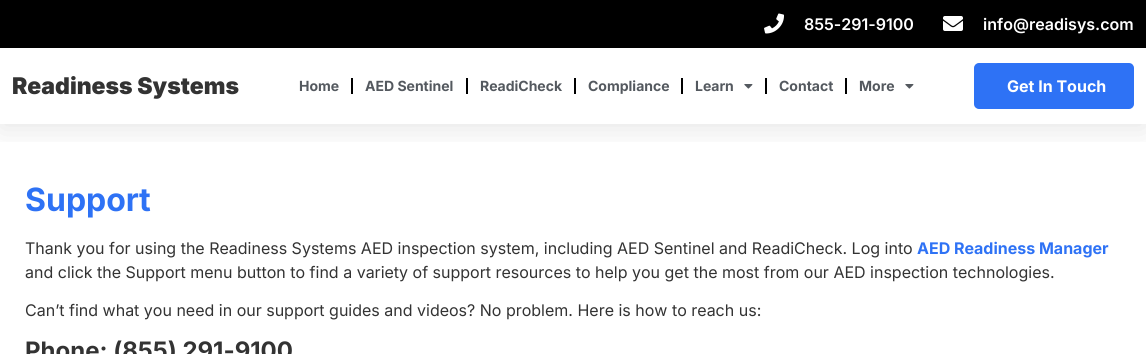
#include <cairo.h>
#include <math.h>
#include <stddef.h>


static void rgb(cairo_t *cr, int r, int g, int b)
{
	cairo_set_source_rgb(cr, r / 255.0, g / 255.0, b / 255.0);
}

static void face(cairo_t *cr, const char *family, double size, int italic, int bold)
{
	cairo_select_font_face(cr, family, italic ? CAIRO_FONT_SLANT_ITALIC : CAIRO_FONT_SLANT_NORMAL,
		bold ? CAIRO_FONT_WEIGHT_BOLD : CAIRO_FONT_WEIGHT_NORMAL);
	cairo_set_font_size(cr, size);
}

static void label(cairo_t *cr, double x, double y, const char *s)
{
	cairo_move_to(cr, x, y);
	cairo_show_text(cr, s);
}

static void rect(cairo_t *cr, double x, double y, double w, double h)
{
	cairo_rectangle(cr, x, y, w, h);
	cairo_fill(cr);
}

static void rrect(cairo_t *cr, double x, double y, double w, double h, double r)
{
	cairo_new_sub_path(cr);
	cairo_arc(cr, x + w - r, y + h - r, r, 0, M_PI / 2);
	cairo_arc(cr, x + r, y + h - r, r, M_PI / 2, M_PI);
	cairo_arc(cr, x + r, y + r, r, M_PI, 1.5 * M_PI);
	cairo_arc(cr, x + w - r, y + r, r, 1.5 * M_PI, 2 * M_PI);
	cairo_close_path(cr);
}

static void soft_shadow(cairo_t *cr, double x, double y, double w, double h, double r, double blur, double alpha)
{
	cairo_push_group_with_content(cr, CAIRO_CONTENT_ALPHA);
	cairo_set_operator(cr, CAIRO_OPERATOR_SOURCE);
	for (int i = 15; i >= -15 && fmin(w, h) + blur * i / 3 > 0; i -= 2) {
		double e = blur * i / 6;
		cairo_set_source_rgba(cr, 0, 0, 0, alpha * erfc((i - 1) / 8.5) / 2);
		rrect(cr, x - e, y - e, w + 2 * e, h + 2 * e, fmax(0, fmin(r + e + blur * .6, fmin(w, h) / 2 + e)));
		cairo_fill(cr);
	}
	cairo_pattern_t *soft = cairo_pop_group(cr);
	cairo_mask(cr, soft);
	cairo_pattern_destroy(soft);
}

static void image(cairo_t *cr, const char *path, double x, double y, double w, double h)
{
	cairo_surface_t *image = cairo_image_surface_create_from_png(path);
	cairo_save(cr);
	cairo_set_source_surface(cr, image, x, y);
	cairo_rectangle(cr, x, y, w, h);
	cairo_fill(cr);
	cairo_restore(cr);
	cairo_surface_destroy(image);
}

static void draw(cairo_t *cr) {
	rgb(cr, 255, 255, 255);
	cairo_paint(cr);
	cairo_save(cr);
	cairo_rectangle(cr, 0, 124, 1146, 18);
	cairo_clip(cr);
	rgb(cr, 0, 0, 0);
	soft_shadow(cr, 0, 5, 1146, 124, 0, 15, 0.1);
	cairo_restore(cr);
	rgb(cr, 0, 0, 0);
	rect(cr, 0, 0, 1146, 48);
	image(cr, "image0.png", 764, 13, 20, 21);
	face(cr, "Inter SemiBold", 16, 0, 0);
	rgb(cr, 255, 255, 255);
	label(cr, 804, 30, "855-291-9100");
	image(cr, "image1.png", 943, 16, 20, 15);
	label(cr, 983, 30, "info@readisys.com");
	face(cr, "Inter Black", 23, 0, 0);
	rgb(cr, 51, 51, 51);
	label(cr, 12, 94, "Readiness Systems");
	face(cr, "Inter", 14, 0, 1);
	rgb(cr, 84, 89, 95);
	label(cr, 299, 91, "Home");
	rgb(cr, 0, 0, 0);
	rect(cr, 351, 78, 2, 16);
	rgb(cr, 84, 89, 95);
	label(cr, 365, 91, "AED Sentinel");
	rgb(cr, 0, 0, 0);
	rect(cr, 466, 78, 2, 16);
	rgb(cr, 84, 89, 95);
	label(cr, 480, 91, "ReadiCheck");
	rgb(cr, 0, 0, 0);
	rect(cr, 574, 78, 2, 16);
	rgb(cr, 84, 89, 95);
	label(cr, 588, 91, "Compliance");
	rgb(cr, 0, 0, 0);
	rect(cr, 681, 78, 2, 16);
	rgb(cr, 84, 89, 95);
	label(cr, 695, 91, "Learn");
	image(cr, "image2.png", 744, 84, 9, 5);
	rgb(cr, 0, 0, 0);
	rect(cr, 765, 78, 2, 16);
	rgb(cr, 84, 89, 95);
	label(cr, 779, 91, "Contact");
	rgb(cr, 0, 0, 0);
	rect(cr, 845, 78, 2, 16);
	rgb(cr, 84, 89, 95);
	label(cr, 859, 91, "More");
	image(cr, "image2.png", 905, 84, 9, 5);
	rgb(cr, 46, 114, 245);
	rrect(cr, 975, 64, 158, 44, 4);
	cairo_fill_preserve(cr);
	cairo_stroke(cr);
	face(cr, "Inter", 16, 0, 1);
	rgb(cr, 255, 255, 255);
	label(cr, 1007, 92, "Get In Touch");
	face(cr, "Inter", 32, 0, 1);
	rgb(cr, 46, 114, 245);
	label(cr, 25, 211, "Support");
	face(cr, "Inter", 16, 0, 0);
	rgb(cr, 51, 51, 51);
	label(cr, 25, 254, "Thank you for using the Readiness Systems AED inspection system, including AED Sentinel and ReadiCheck. Log into");
	face(cr, "Inter", 16, 0, 1);
	rgb(cr, 46, 114, 245);
	label(cr, 917, 254, "AED Readiness Manager");
	face(cr, "Inter", 16, 0, 0);
	rgb(cr, 51, 51, 51);
	label(cr, 25, 278, "and click the Support menu button to find a variety of support resources to help you get the most from our AED inspection technologies.");
	label(cr, 25, 316, "Can’t find what you need in our support guides and videos? No problem. Here is how to reach us:");
	face(cr, "Inter", 24, 0, 1);
	label(cr, 25, 359, "Phone: (855) 291-9100");
}

int main(void) {
	cairo_surface_t *surface = cairo_image_surface_create(CAIRO_FORMAT_RGB24, 1146, 354);
	cairo_t *cr = cairo_create(surface);
	cairo_font_options_t *options = cairo_font_options_create();
	cairo_font_options_set_hint_metrics(options, CAIRO_HINT_METRICS_OFF);
	cairo_font_options_set_hint_style(options, CAIRO_HINT_STYLE_NONE);
	cairo_set_font_options(cr, options);
	cairo_set_miter_limit(cr, 4);
	draw(cr);
	cairo_surface_write_to_png(surface, "render.png");
	cairo_font_options_destroy(options);
	cairo_destroy(cr);
	cairo_surface_destroy(surface);
	return 0;
}
